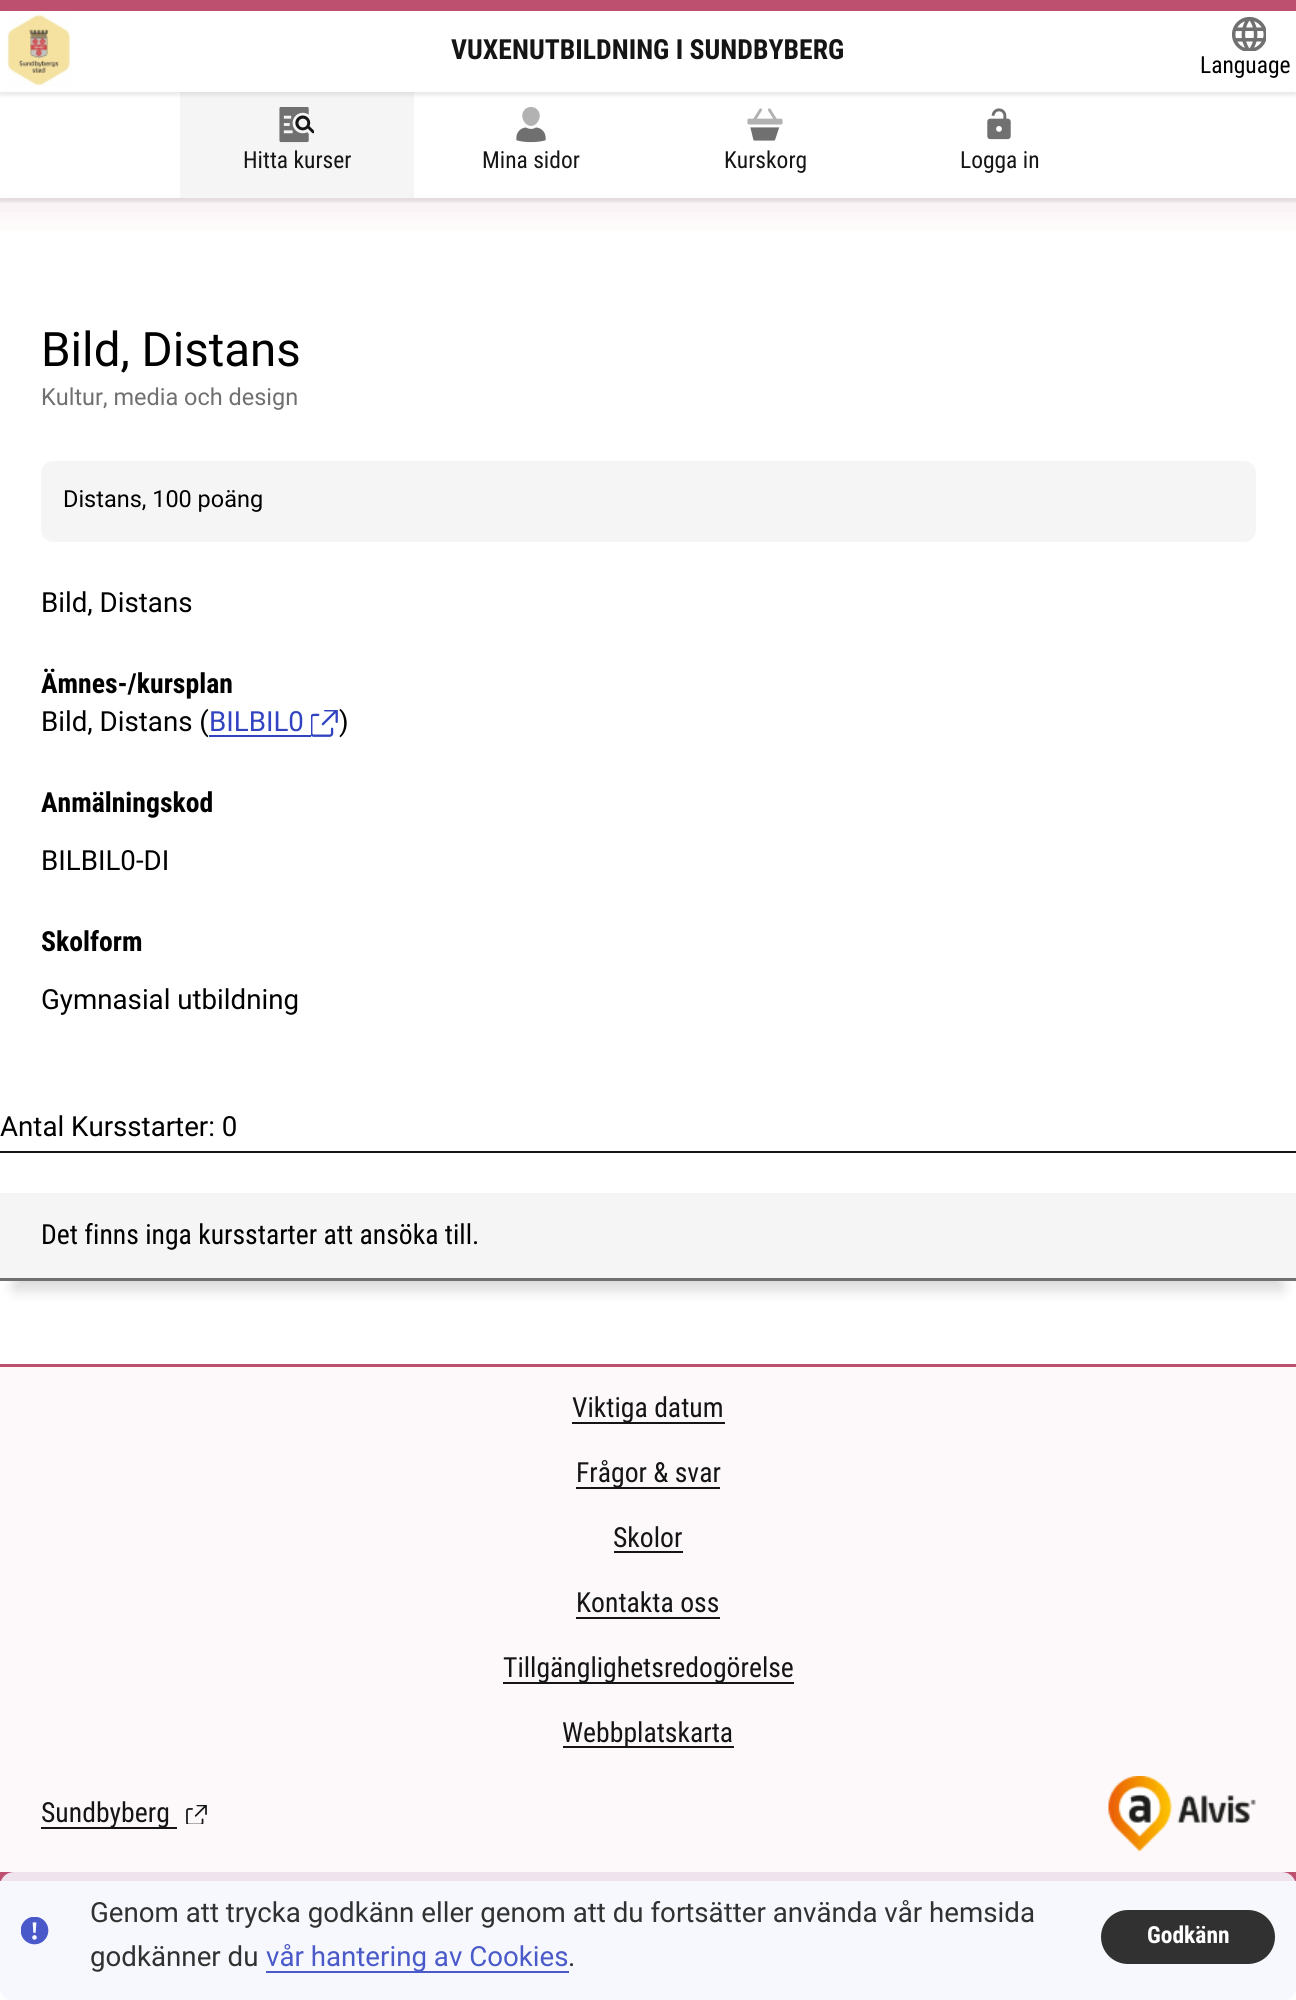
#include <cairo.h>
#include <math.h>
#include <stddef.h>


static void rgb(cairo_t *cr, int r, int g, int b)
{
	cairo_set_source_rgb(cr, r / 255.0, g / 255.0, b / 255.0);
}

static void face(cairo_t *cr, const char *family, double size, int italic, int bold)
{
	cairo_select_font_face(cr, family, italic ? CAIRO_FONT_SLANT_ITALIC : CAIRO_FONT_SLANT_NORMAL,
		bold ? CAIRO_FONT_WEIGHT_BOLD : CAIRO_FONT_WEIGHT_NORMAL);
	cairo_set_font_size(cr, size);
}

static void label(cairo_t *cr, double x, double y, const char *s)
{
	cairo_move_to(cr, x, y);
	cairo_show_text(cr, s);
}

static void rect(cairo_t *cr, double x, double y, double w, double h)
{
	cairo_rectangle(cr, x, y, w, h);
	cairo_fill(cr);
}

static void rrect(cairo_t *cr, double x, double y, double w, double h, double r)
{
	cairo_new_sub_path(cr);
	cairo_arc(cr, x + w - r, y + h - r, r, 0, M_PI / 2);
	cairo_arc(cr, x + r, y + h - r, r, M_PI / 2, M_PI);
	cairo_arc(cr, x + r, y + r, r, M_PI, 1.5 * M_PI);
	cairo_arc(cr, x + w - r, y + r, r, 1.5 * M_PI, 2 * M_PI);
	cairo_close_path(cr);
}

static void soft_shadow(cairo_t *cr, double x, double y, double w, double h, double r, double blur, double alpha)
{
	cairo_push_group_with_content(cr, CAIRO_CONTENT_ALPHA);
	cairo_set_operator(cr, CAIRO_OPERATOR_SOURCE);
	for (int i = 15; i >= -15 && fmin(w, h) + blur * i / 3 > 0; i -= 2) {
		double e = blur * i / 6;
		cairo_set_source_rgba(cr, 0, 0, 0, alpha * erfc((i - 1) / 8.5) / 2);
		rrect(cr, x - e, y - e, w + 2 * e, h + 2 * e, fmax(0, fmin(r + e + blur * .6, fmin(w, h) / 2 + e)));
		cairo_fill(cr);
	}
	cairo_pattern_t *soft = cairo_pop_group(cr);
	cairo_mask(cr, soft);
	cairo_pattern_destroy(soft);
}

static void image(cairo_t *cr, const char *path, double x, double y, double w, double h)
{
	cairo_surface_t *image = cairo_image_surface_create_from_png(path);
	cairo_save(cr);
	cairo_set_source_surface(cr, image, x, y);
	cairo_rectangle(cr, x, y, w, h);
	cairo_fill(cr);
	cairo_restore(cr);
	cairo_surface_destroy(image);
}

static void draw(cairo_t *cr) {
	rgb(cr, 255, 255, 255);
	cairo_paint(cr);
	cairo_save(cr);
	cairo_rectangle(cr, 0, 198, 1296, 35);
	cairo_clip(cr);
	rgb(cr, 188, 80, 110);
	soft_shadow(cr, -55, -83, 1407, 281, 0, 27.5, 0.2);
	cairo_restore(cr);
	cairo_save(cr);
	cairo_rectangle(cr, 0, 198, 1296, 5);
	cairo_clip(cr);
	rgb(cr, 0, 0, 0);
	soft_shadow(cr, 0, 95, 1296, 106, 0, 2.5, 0.1);
	cairo_restore(cr);
	rgb(cr, 245, 245, 245);
	rect(cr, 180, 92, 234, 106);
	cairo_save(cr);
	cairo_set_fill_rule(cr, CAIRO_FILL_RULE_EVEN_ODD);
	cairo_new_path(cr);
	cairo_move_to(cr, 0, 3);
	cairo_line_to(cr, 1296, 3);
	cairo_line_to(cr, 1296, 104);
	cairo_line_to(cr, 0, 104);
	cairo_close_path(cr);
	cairo_move_to(cr, 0, 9);
	cairo_line_to(cr, 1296, 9);
	cairo_line_to(cr, 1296, 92);
	cairo_line_to(cr, 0, 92);
	cairo_close_path(cr);
	cairo_clip(cr);
	rgb(cr, 0, 0, 0);
	soft_shadow(cr, 0, 12, 1296, 83, 0, 2.5, 0.1);
	cairo_restore(cr);
	rgb(cr, 188, 80, 110);
	rect(cr, 0, 0, 1296, 11);
	image(cr, "image0.png", 7, 15, 65, 71);
	face(cr, "Roboto Condensed", 27.7, 0, 1);
	rgb(cr, 21, 21, 21);
	label(cr, 451, 59, "VUXENUTBILDNING I SUNDBYBERG");
	image(cr, "image1.png", 1232, 17, 34, 34);
	face(cr, "Roboto Condensed", 23.5, 0, 0);
	rgb(cr, 0, 0, 0);
	label(cr, 1200, 73, "Language");
	image(cr, "image2.png", 279, 107, 35, 36);
	rgb(cr, 21, 21, 21);
	label(cr, 243, 168, "Hitta kurser");
	image(cr, "image3.png", 516, 107, 30, 36);
	label(cr, 482, 168, "Mina sidor");
	image(cr, "image4.png", 747, 108, 36, 33);
	label(cr, 724, 168, "Kurskorg");
	image(cr, "image5.png", 987, 108, 24, 32);
	label(cr, 960, 168, "Logga in");
	face(cr, "Roboto", 47.5, 0, 0);
	rgb(cr, 0, 0, 0);
	label(cr, 41, 366, "Bild, Distans");
	face(cr, "Roboto", 23.5, 0, 0);
	rgb(cr, 112, 112, 112);
	label(cr, 41, 405, "Kultur, media och design");
	rgb(cr, 245, 245, 245);
	rrect(cr, 41, 461, 1215, 81, 12);
	cairo_fill(cr);
	rgb(cr, 0, 0, 0);
	label(cr, 63, 507, "Distans, 100 poäng");
	face(cr, "Roboto", 27.7, 0, 0);
	label(cr, 41, 612, "Bild, Distans");
	face(cr, "Roboto Condensed", 27.7, 0, 1);
	label(cr, 41, 693, "Ämnes-/kursplan");
	face(cr, "Roboto", 27.7, 0, 0);
	label(cr, 41, 731, "Bild, Distans (");
	rgb(cr, 49, 67, 193);
	label(cr, 209, 731, "BILBIL0");
	rect(cr, 209, 735, 102, 2);
	image(cr, "image6.png", 311, 710, 27, 27);
	rgb(cr, 0, 0, 0);
	label(cr, 339, 731, ")");
	face(cr, "Roboto Condensed", 27.7, 0, 1);
	label(cr, 41, 812, "Anmälningskod");
	face(cr, "Roboto", 27.7, 0, 0);
	label(cr, 41, 870, "BILBIL0-DI");
	face(cr, "Roboto Condensed", 27.7, 0, 1);
	label(cr, 41, 951, "Skolform");
	face(cr, "Roboto", 27.7, 0, 0);
	label(cr, 41, 1009, "Gymnasial utbildning");
	rgb(cr, 21, 21, 21);
	rect(cr, 0, 1151, 1296, 2);
	rgb(cr, 0, 0, 0);
	label(cr, 0, 1136, "Antal Kursstarter: 0");
	rgb(cr, 0, 0, 0);
	soft_shadow(cr, 14, 1229, 1269, 61, 0, 7, 0.15);
	rgb(cr, 112, 112, 112);
	rect(cr, 0, 1278, 1296, 3);
	rgb(cr, 245, 245, 245);
	rect(cr, 0, 1193, 1296, 85);
	face(cr, "Roboto Condensed", 27.7, 0, 0);
	rgb(cr, 0, 0, 0);
	label(cr, 41, 1244, "Det finns inga kursstarter att ansöka till.");
	rgb(cr, 253, 249, 250);
	rect(cr, 0, 1367, 1296, 505);
	rgb(cr, 188, 80, 110);
	rect(cr, 0, 1364, 1296, 3);
	rect(cr, 0, 1872, 1296, 9);
	rgb(cr, 21, 21, 21);
	rect(cr, 572, 1422, 153, 2);
	label(cr, 572, 1417, "Viktiga datum");
	rect(cr, 576, 1487, 144, 2);
	label(cr, 576, 1482, "Frågor & svar");
	label(cr, 613, 1547, "Skolor");
	rect(cr, 614, 1551, 69, 2);
	label(cr, 576, 1612, "Kontakta oss");
	rect(cr, 576, 1617, 144, 2);
	rect(cr, 503, 1682, 291, 2);
	label(cr, 503, 1677, "Tillgänglighetsredogörelse");
	rect(cr, 563, 1746, 171, 2);
	label(cr, 562, 1742, "Webbplatskarta");
	rect(cr, 41, 1827, 136, 2);
	label(cr, 41, 1822, "Sundbyberg");
	image(cr, "image7.png", 186, 1805, 21, 19);
	image(cr, "image8.png", 1108, 1776, 148, 75);
	cairo_set_source_rgba(cr, 0.965, 0.969, 0.996, 0.88);
	rrect(cr, 0, 1872, 1296, 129, 14);
	cairo_fill(cr);
	image(cr, "image9.png", 21, 1917, 28, 28);
	face(cr, "Roboto", 27.7, 0, 0);
	rgb(cr, 49, 49, 49);
	label(cr, 90, 1922, "Genom att trycka godkänn eller genom att du fortsätter använda vår hemsida");
	label(cr, 90, 1966, "godkänner du");
	rgb(cr, 74, 90, 200);
	rect(cr, 266, 1971, 303, 2);
	label(cr, 266, 1966, "vår hantering av Cookies");
	rgb(cr, 49, 49, 49);
	label(cr, 568, 1966, ".");
	rrect(cr, 1102.5, 1911.5, 171, 51, 25.5);
	cairo_fill_preserve(cr);
	cairo_set_line_width(cr, 3);
	cairo_stroke(cr);
	face(cr, "Roboto Condensed", 23.5, 0, 1);
	rgb(cr, 255, 255, 255);
	label(cr, 1147, 1943, "Godkänn");
}

int main(void) {
	cairo_surface_t *surface = cairo_image_surface_create(CAIRO_FORMAT_RGB24, 1296, 2000);
	cairo_t *cr = cairo_create(surface);
	cairo_font_options_t *options = cairo_font_options_create();
	cairo_font_options_set_hint_metrics(options, CAIRO_HINT_METRICS_OFF);
	cairo_font_options_set_hint_style(options, CAIRO_HINT_STYLE_NONE);
	cairo_set_font_options(cr, options);
	cairo_set_miter_limit(cr, 4);
	draw(cr);
	cairo_surface_write_to_png(surface, "render.png");
	cairo_font_options_destroy(options);
	cairo_destroy(cr);
	cairo_surface_destroy(surface);
	return 0;
}
